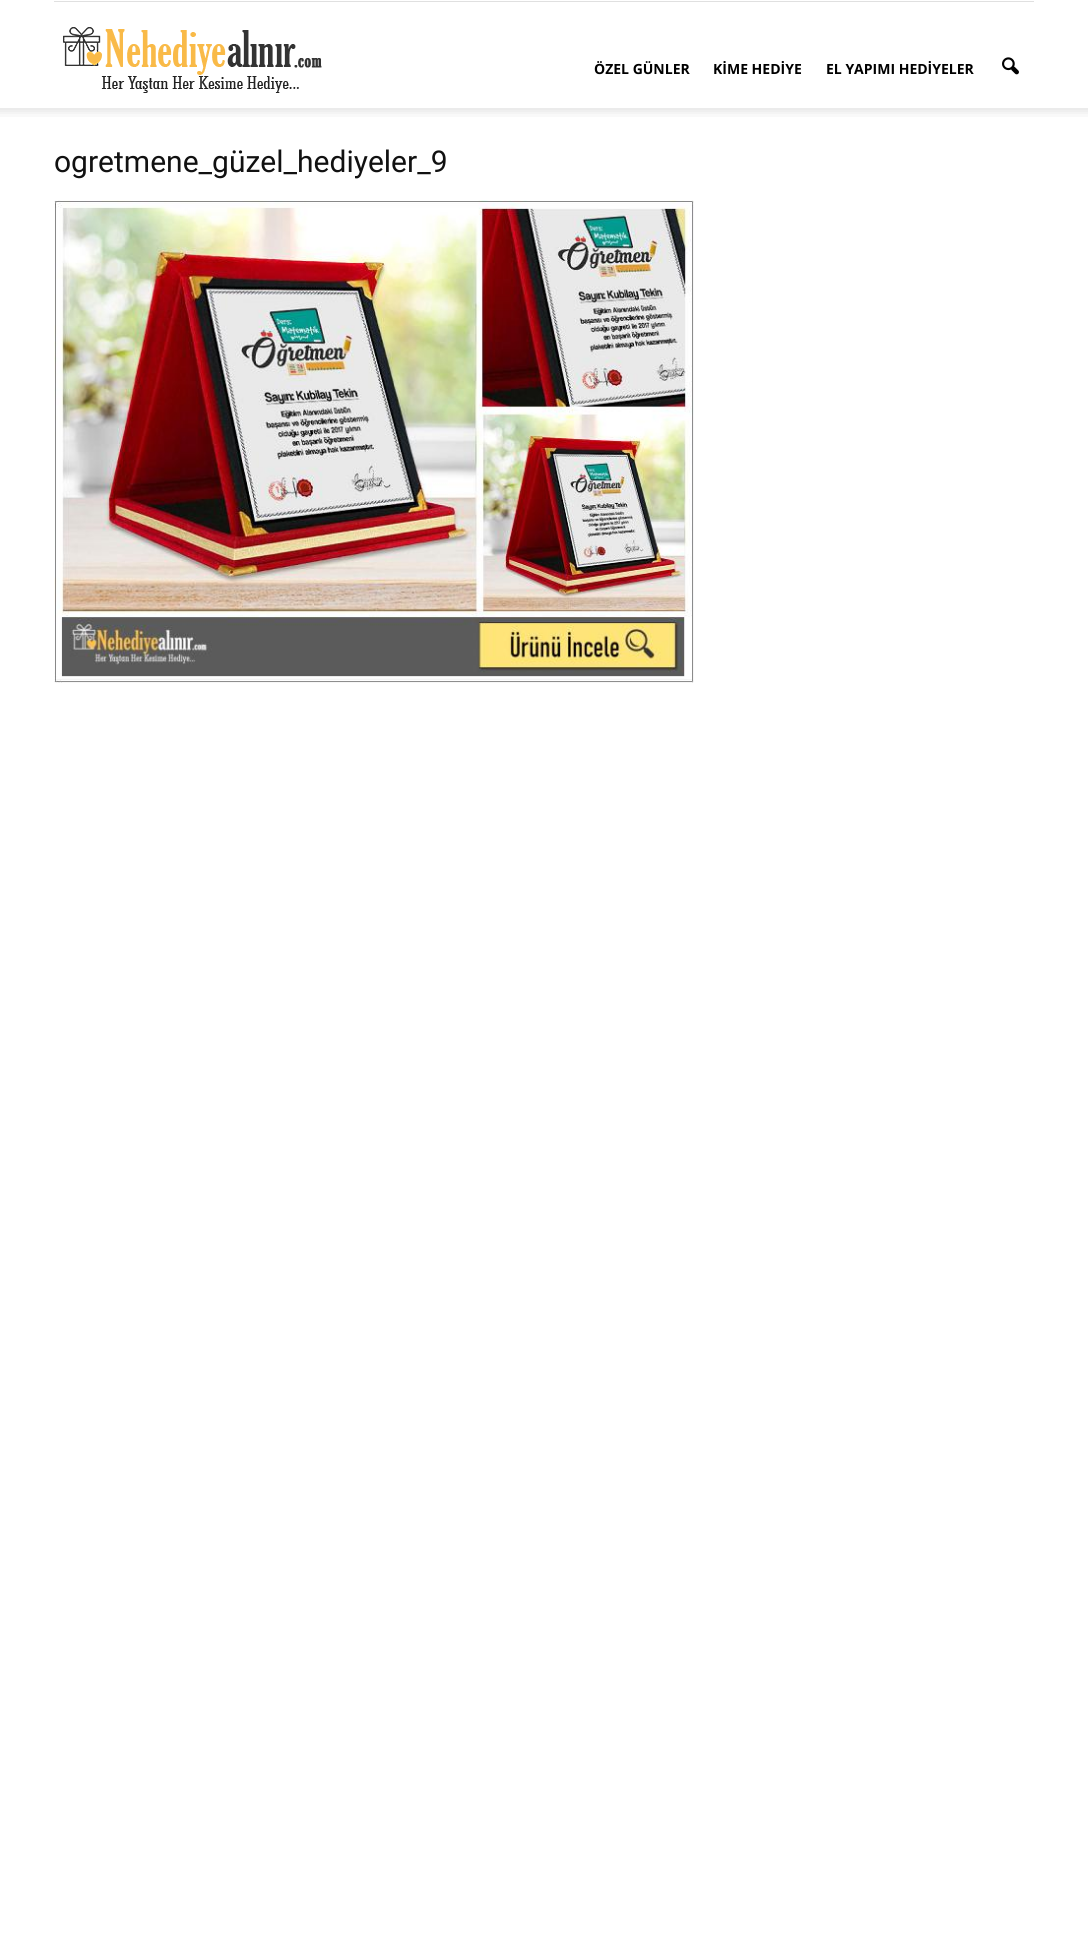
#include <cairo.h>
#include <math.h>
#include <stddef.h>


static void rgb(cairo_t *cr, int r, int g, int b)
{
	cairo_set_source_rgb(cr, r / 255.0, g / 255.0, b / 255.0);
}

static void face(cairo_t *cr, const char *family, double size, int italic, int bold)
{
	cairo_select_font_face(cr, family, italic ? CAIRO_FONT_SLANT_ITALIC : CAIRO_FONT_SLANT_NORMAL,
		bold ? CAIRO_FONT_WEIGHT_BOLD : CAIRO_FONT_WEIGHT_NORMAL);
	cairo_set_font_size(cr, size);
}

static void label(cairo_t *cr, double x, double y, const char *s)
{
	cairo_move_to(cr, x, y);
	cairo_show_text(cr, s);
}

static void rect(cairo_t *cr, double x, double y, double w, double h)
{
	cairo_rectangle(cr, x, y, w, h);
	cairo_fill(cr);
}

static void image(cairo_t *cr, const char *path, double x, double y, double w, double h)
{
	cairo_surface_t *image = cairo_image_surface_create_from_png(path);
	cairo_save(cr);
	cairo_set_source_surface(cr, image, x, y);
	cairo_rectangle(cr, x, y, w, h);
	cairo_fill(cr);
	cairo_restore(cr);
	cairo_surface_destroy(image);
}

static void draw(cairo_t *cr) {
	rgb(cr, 255, 255, 255);
	cairo_paint(cr);
	rgb(cr, 224, 224, 224);
	rect(cr, 54, 1, 980, 1);
	image(cr, "image0.png", 63, 27, 259, 66);
	face(cr, "Open Sans", 14, 0, 1);
	rgb(cr, 0, 0, 0);
	label(cr, 594, 74, "ÖZEL GÜNLER");
	label(cr, 713, 74, "KİME HEDİYE");
	label(cr, 826, 74, "EL YAPIMI HEDİYELER");
	image(cr, "image1.png", 1002, 57, 17, 18);
	image(cr, "image2.png", 0, 108, 1088, 9);
	face(cr, "Roboto", 30, 0, 0);
	rgb(cr, 17, 17, 17);
	label(cr, 54, 172, "ogretmene_güzel_hediyeler_9");
	image(cr, "image3.png", 54, 200, 640, 483);
}

int main(void) {
	cairo_surface_t *surface = cairo_image_surface_create(CAIRO_FORMAT_RGB24, 1088, 1955);
	cairo_t *cr = cairo_create(surface);
	cairo_font_options_t *options = cairo_font_options_create();
	cairo_font_options_set_hint_metrics(options, CAIRO_HINT_METRICS_OFF);
	cairo_font_options_set_hint_style(options, CAIRO_HINT_STYLE_NONE);
	cairo_set_font_options(cr, options);
	cairo_set_miter_limit(cr, 4);
	draw(cr);
	cairo_surface_write_to_png(surface, "render.png");
	cairo_font_options_destroy(options);
	cairo_destroy(cr);
	cairo_surface_destroy(surface);
	return 0;
}
